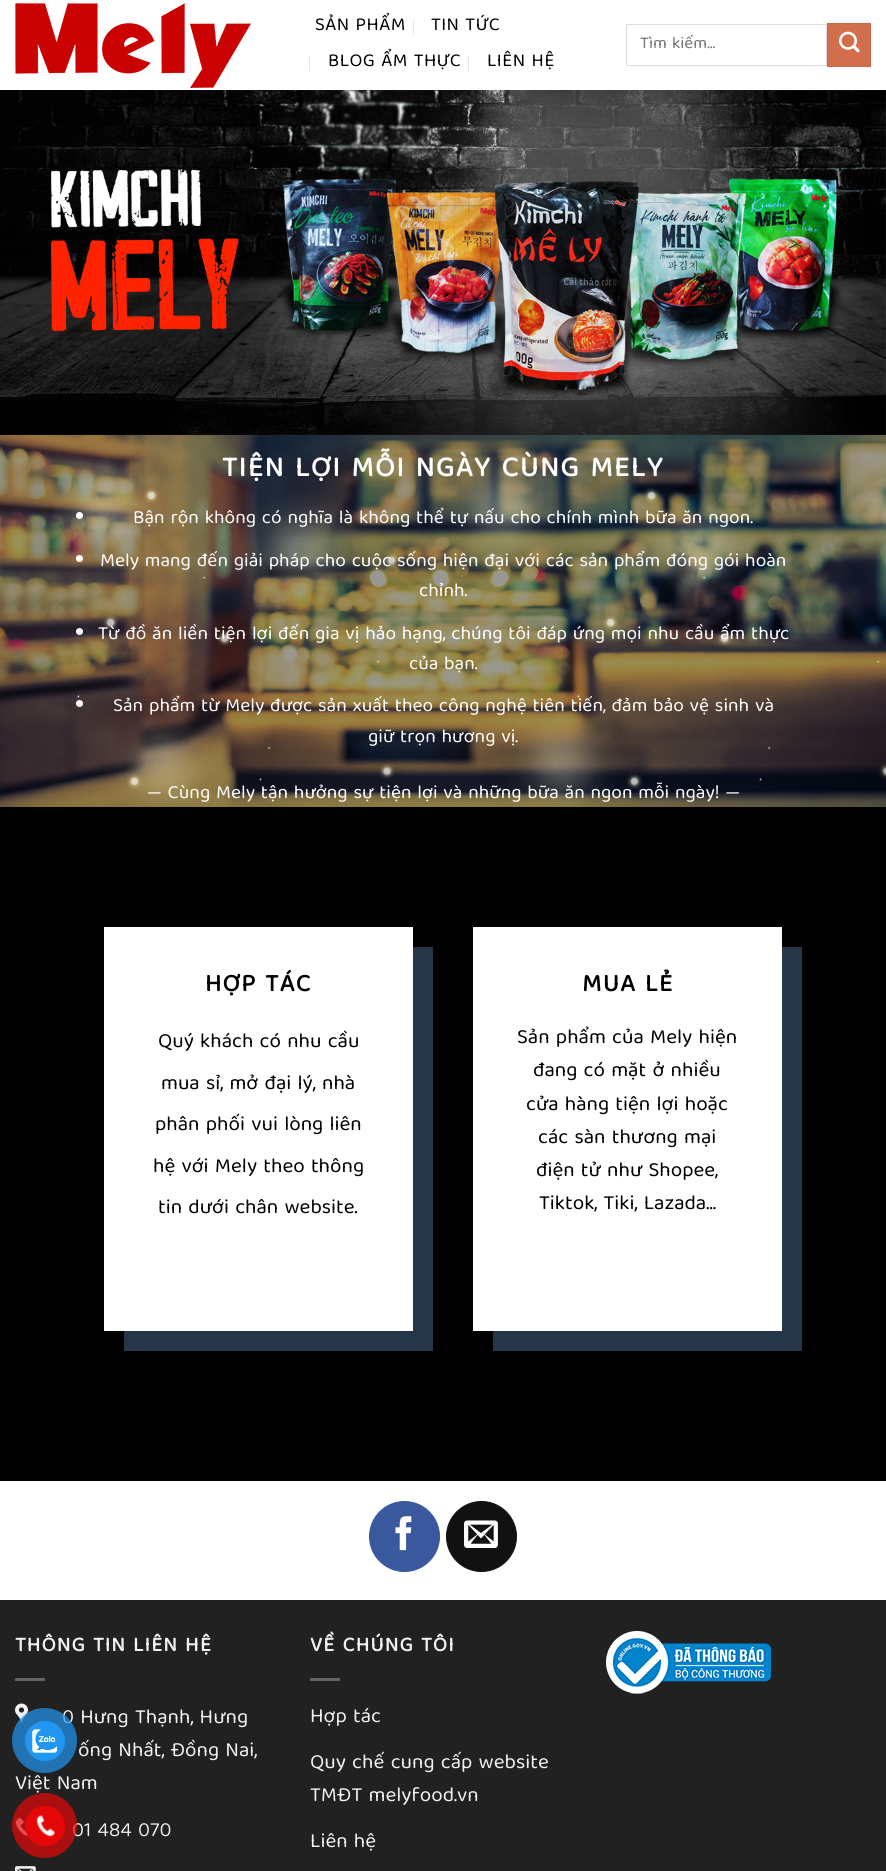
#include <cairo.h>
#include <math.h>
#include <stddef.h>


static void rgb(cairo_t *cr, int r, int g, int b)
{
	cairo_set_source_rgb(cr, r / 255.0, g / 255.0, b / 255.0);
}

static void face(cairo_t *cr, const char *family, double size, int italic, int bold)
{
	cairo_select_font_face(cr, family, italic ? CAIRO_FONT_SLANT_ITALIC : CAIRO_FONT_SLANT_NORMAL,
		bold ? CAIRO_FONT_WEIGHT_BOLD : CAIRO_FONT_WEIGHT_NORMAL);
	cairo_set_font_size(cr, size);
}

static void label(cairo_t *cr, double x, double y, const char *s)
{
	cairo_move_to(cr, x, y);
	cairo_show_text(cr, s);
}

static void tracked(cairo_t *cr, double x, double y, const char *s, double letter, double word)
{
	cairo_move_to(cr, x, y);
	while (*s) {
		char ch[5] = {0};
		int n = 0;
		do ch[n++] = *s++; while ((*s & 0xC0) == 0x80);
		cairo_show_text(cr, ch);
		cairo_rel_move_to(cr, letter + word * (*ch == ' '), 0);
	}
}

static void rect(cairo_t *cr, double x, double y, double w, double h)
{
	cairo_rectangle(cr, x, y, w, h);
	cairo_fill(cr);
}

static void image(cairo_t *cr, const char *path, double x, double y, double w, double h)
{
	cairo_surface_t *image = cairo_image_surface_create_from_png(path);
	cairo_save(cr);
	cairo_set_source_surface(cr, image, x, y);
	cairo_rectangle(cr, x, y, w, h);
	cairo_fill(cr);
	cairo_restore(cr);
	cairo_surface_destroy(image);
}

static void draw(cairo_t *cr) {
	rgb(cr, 255, 255, 255);
	cairo_paint(cr);
	image(cr, "image0.png", 15, 3, 236, 85);
	face(cr, "Baloo Tamma 2", 18.75, 0, 0);
	rgb(cr, 0, 0, 0);
	tracked(cr, 315, 30, "SẢN PHẨM", 0.4, 0);
	rgb(cr, 230, 230, 230);
	rect(cr, 413, 20, 1, 15);
	rgb(cr, 0, 0, 0);
	tracked(cr, 431, 30, "TIN TỨC", 0.4, 0);
	rgb(cr, 230, 230, 230);
	rect(cr, 309, 56, 1, 15);
	rgb(cr, 0, 0, 0);
	tracked(cr, 328, 66, "BLOG ẨM THỰC", 0.4, 0);
	rgb(cr, 230, 230, 230);
	rect(cr, 468, 56, 1, 15);
	rgb(cr, 0, 0, 0);
	tracked(cr, 487, 66, "LIÊN HỆ", 0.4, 0);
	cairo_rectangle(cr, 626.5, 24.5, 200, 41);
	rgb(cr, 221, 221, 221);
	cairo_set_line_width(cr, 1);
	cairo_stroke(cr);
	face(cr, "Baloo Tamma 2", 17, 0, 0);
	rgb(cr, 117, 117, 117);
	label(cr, 640, 48, "Tìm kiếm…");
	rgb(cr, 210, 110, 75);
	cairo_rectangle(cr, 827.5, 23.5, 43, 43);
	cairo_fill_preserve(cr);
	rgb(cr, 200, 105, 71);
	cairo_stroke(cr);
	image(cr, "image1.png", 839, 31, 21, 22);
	image(cr, "image2.png", 0, 90, 886, 345);
	cairo_set_source_rgba(cr, 0, 0, 0, 0.1);
	rect(cr, 15, 90, 757, 1);
	image(cr, "image3.png", 0, 435, 886, 372);
	image(cr, "image4.png", 53, 459, 833, 348);
	face(cr, "Baloo Tamma 2", 28.75, 0, 1);
	rgb(cr, 255, 255, 255);
	tracked(cr, 222, 476, "TIỆN LỢI MỖI NGÀY CÙNG MELY", 1.45, 0);
	cairo_new_path(cr);
	cairo_arc(cr, 79.5, 515.5, 3.5, 0, 2 * M_PI);
	cairo_fill(cr);
	face(cr, "Baloo Tamma 2", 19.2, 0, 0);
	label(cr, 133, 523, "Bận rộn không có nghĩa là không thể tự nấu cho chính mình bữa ăn ngon.");
	cairo_new_path(cr);
	cairo_arc(cr, 79.5, 558.5, 3.5, 0, 2 * M_PI);
	cairo_fill(cr);
	label(cr, 100, 566, "Mely mang đến giải pháp cho cuộc sống hiện đại với các sản phẩm đóng gói hoàn");
	label(cr, 419, 596, "chỉnh.");
	cairo_new_path(cr);
	cairo_arc(cr, 79.5, 631.5, 3.5, 0, 2 * M_PI);
	cairo_fill(cr);
	label(cr, 98, 639, "Từ đồ ăn liền tiện lợi đến gia vị hảo hạng, chúng tôi đáp ứng mọi nhu cầu ẩm thực");
	label(cr, 409, 669, "của bạn.");
	cairo_new_path(cr);
	cairo_arc(cr, 79.5, 703.5, 3.5, 0, 2 * M_PI);
	cairo_fill(cr);
	label(cr, 113, 711, "Sản phẩm từ Mely được sản xuất theo công nghệ tiên tiến, đảm bảo vệ sinh và");
	label(cr, 368, 742, "giữ trọn hương vị.");
	label(cr, 147, 798, "— Cùng Mely tận hưởng sự tiện lợi và những bữa ăn ngon mỗi ngày! —");
	rgb(cr, 0, 0, 0);
	rect(cr, 0, 807, 886, 674);
	rgb(cr, 255, 255, 255);
	rect(cr, 104, 927, 309, 404);
	rgb(cr, 39, 54, 71);
	rect(cr, 413, 947, 20, 384);
	rect(cr, 124, 1331, 309, 20);
	face(cr, "Baloo Tamma 2", 25, 0, 1);
	rgb(cr, 0, 0, 0);
	tracked(cr, 205, 991, "HỢP TÁC", 1.25, 0);
	face(cr, "Baloo Tamma 2", 20.75, 0, 0);
	label(cr, 158, 1047, "Quý khách có nhu cầu");
	label(cr, 161, 1089, "mua sỉ, mở đại lý, nhà");
	label(cr, 155, 1130, "phân phối vui lòng liên");
	label(cr, 153, 1172, "hệ với Mely theo thông");
	label(cr, 158, 1213, "tin dưới chân website.");
	rgb(cr, 255, 255, 255);
	rect(cr, 473, 927, 309, 404);
	rgb(cr, 39, 54, 71);
	rect(cr, 782, 947, 20, 384);
	rect(cr, 493, 1331, 309, 20);
	face(cr, "Baloo Tamma 2", 25, 0, 1);
	rgb(cr, 0, 0, 0);
	tracked(cr, 582, 991, "MUA LẺ", 1.25, 0);
	face(cr, "Baloo Tamma 2", 20.75, 0, 0);
	label(cr, 517, 1043, "Sản phẩm của Mely hiện");
	label(cr, 533, 1076, "đang có mặt ở nhiều");
	label(cr, 526, 1110, "cửa hàng tiện lợi hoặc");
	label(cr, 538, 1143, "các sàn thương mại");
	label(cr, 536, 1176, "điện tử như Shopee,");
	label(cr, 539, 1209, "Tiktok, Tiki, Lazada…");
	rgb(cr, 58, 88, 157);
	cairo_new_path(cr);
	cairo_arc(cr, 404.5, 1536.5, 35, 0, 2 * M_PI);
	cairo_fill_preserve(cr);
	cairo_stroke(cr);
	image(cr, "image5.png", 395, 1516, 17, 35);
	rgb(cr, 17, 17, 17);
	cairo_arc(cr, 481.5, 1536.5, 35, 0, 2 * M_PI);
	cairo_fill_preserve(cr);
	cairo_stroke(cr);
	image(cr, "image6.png", 464, 1520, 34, 28);
	rgb(cr, 33, 33, 33);
	rect(cr, 0, 1601, 886, 270);
	rgb(cr, 31, 31, 31);
	rect(cr, 0, 1600, 886, 1);
	face(cr, "Baloo Tamma 2", 20.75, 0, 1);
	rgb(cr, 241, 241, 241);
	tracked(cr, 15, 1651, "THÔNG TIN LIÊN HỆ", 1, 0);
	rgb(cr, 100, 100, 100);
	rect(cr, 15, 1678, 30, 3);
	image(cr, "image7.png", 15, 1703, 13, 21);
	face(cr, "Baloo Tamma 2", 20.75, 0, 0);
	rgb(cr, 241, 241, 241);
	label(cr, 62, 1723, "0 Hưng Thạnh, Hưng");
	label(cr, 78, 1756, "ống Nhất, Đồng Nai,");
	label(cr, 15, 1789, "Việt Nam");
	image(cr, "image8.png", 15, 1817, 14, 20);
	label(cr, 72, 1836, "01 484 070");
	image(cr, "image9.png", 15, 1866, 21, 5);
	face(cr, "Baloo Tamma 2", 20.75, 0, 1);
	tracked(cr, 310, 1651, "VỀ CHÚNG TÔI", 1, 0);
	rgb(cr, 100, 100, 100);
	rect(cr, 310, 1678, 30, 3);
	face(cr, "Baloo Tamma 2", 20.75, 0, 0);
	rgb(cr, 241, 241, 241);
	label(cr, 310, 1722, "Hợp tác");
	label(cr, 310, 1768, "Quy chế cung cấp website");
	label(cr, 310, 1801, "TMĐT melyfood.vn");
	label(cr, 310, 1847, "Liên hệ");
	image(cr, "image10.png", 606, 1631, 165, 63);
	cairo_set_source_rgba(cr, 0.129, 0.588, 0.953, 0.7);
	cairo_arc(cr, 44.5, 1740.5, 32.5, 0, 2 * M_PI);
	cairo_fill(cr);
	rgb(cr, 33, 150, 243);
	cairo_arc(cr, 45, 1741, 20, 0, 2 * M_PI);
	cairo_fill(cr);
	image(cr, "image11.png", 32, 1729, 26, 24);
	cairo_set_source_rgba(cr, 0.902, 0.031, 0.031, 0.7);
	cairo_arc(cr, 44.5, 1825.5, 32.5, 0, 2 * M_PI);
	cairo_fill(cr);
	rgb(cr, 230, 8, 8);
	cairo_arc(cr, 45, 1826, 20, 0, 2 * M_PI);
	cairo_fill(cr);
	image(cr, "image12.png", 36, 1815, 19, 22);
}

int main(void) {
	cairo_surface_t *surface = cairo_image_surface_create(CAIRO_FORMAT_RGB24, 886, 1871);
	cairo_t *cr = cairo_create(surface);
	cairo_font_options_t *options = cairo_font_options_create();
	cairo_font_options_set_hint_metrics(options, CAIRO_HINT_METRICS_OFF);
	cairo_font_options_set_hint_style(options, CAIRO_HINT_STYLE_NONE);
	cairo_set_font_options(cr, options);
	cairo_set_miter_limit(cr, 4);
	draw(cr);
	cairo_surface_write_to_png(surface, "render.png");
	cairo_font_options_destroy(options);
	cairo_destroy(cr);
	cairo_surface_destroy(surface);
	return 0;
}
